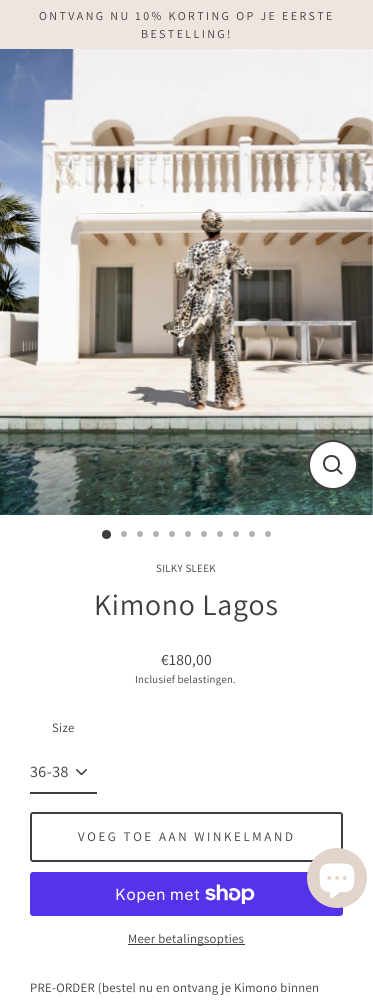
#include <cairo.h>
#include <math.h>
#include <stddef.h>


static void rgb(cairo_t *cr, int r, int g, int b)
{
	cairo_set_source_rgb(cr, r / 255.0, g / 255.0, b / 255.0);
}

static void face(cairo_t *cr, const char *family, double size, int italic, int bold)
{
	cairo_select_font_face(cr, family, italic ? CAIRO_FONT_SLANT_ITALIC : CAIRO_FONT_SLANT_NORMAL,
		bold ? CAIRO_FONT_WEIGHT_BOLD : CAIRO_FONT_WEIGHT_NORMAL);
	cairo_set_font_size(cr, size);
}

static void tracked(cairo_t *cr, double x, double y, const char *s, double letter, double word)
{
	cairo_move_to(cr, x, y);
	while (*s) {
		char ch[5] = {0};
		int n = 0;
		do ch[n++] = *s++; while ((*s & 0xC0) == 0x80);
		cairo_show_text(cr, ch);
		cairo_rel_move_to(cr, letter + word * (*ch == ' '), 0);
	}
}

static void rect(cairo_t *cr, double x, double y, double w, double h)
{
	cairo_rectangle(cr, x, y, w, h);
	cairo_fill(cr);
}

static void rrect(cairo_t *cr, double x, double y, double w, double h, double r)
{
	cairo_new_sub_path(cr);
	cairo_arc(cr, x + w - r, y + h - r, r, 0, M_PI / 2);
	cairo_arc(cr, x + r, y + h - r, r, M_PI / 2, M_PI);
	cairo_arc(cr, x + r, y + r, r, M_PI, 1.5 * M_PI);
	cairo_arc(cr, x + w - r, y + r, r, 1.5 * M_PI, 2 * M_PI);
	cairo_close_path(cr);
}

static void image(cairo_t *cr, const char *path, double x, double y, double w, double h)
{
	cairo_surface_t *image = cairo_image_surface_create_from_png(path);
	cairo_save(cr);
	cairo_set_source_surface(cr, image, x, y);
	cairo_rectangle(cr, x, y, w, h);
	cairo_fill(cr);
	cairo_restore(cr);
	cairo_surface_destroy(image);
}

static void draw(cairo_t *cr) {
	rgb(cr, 255, 255, 255);
	cairo_paint(cr);
	rgb(cr, 238, 229, 224);
	rect(cr, 0, 0, 373, 49);
	face(cr, "Assistant", 12, 0, 0);
	rgb(cr, 62, 61, 61);
	tracked(cr, 39, 20, "ONTVANG NU 10% KORTING OP JE EERSTE", 2.4, 0);
	tracked(cr, 141, 38, "BESTELLING!", 2.4, 0);
	image(cr, "image0.png", 0, 49, 373, 466);
	rgb(cr, 255, 255, 255);
	cairo_arc(cr, 333, 465, 24, 0, 2 * M_PI);
	cairo_fill_preserve(cr);
	rgb(cr, 62, 61, 61);
	cairo_stroke(cr);
	cairo_new_path(cr);
	cairo_move_to(cr, 339, 463.5);
	cairo_curve_to(cr, 339, 473.5, 324, 473.5, 324, 463.5);
	cairo_curve_to(cr, 324, 453.5, 339, 453.5, 339, 463.5);
	cairo_close_path(cr);
	cairo_move_to(cr, 342, 474);
	cairo_line_to(cr, 337, 469);
	cairo_stroke(cr);
	cairo_arc(cr, 106.5, 534.5, 4.5, 0, 2 * M_PI);
	cairo_fill(cr);
	rgb(cr, 178, 177, 177);
	cairo_arc(cr, 124, 534, 3, 0, 2 * M_PI);
	cairo_fill(cr);
	cairo_arc(cr, 140, 534, 3, 0, 2 * M_PI);
	cairo_fill(cr);
	cairo_arc(cr, 156, 534, 3, 0, 2 * M_PI);
	cairo_fill(cr);
	cairo_arc(cr, 172, 534, 3, 0, 2 * M_PI);
	cairo_fill(cr);
	cairo_arc(cr, 188, 534, 3, 0, 2 * M_PI);
	cairo_fill(cr);
	cairo_arc(cr, 204, 534, 3, 0, 2 * M_PI);
	cairo_fill(cr);
	cairo_arc(cr, 220, 534, 3, 0, 2 * M_PI);
	cairo_fill(cr);
	cairo_arc(cr, 236, 534, 3, 0, 2 * M_PI);
	cairo_fill(cr);
	cairo_arc(cr, 252, 534, 3, 0, 2 * M_PI);
	cairo_fill(cr);
	cairo_arc(cr, 268, 534, 3, 0, 2 * M_PI);
	cairo_fill(cr);
	face(cr, "Assistant", 11, 0, 0);
	rgb(cr, 62, 61, 61);
	tracked(cr, 156, 572, "SILKY SLEEK", 0.3, 0);
	face(cr, "Assistant", 29.75, 0, 0);
	tracked(cr, 94, 615, "Kimono Lagos", 0.75, 0);
	face(cr, "Assistant", 15.5, 0, 0);
	tracked(cr, 161, 665, "€180,00", 0.3, 0);
	face(cr, "Assistant", 10.75, 0, 0);
	tracked(cr, 135, 683, "Inclusief belastingen.", 0.3, 0);
	face(cr, "Assistant", 12.75, 0, 0);
	tracked(cr, 52, 732, "Size", 0.3, 0);
	image(cr, "image1.png", 76, 769, 11, 6);
	rect(cr, 30, 792, 67, 2);
	face(cr, "Assistant", 16, 0, 0);
	tracked(cr, 30, 777, "36-38", 0.5, 0);
	rrect(cr, 31, 813, 311, 48, 2);
	cairo_stroke(cr);
	face(cr, "Assistant", 13, 0, 0);
	tracked(cr, 78, 841, "VOEG TOE AAN WINKELMAND", 2.6, 0);
	rgb(cr, 84, 51, 235);
	rrect(cr, 30, 872, 313, 44, 3);
	cairo_fill(cr);
	face(cr, "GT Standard", 16, 0, 0);
	rgb(cr, 255, 255, 255);
	tracked(cr, 115, 900, "Kopen met", 0.3, 0);
	image(cr, "image2.png", 205, 884, 50, 20);
	rgb(cr, 62, 61, 61);
	rect(cr, 128, 944, 117, 1);
	face(cr, "Assistant", 12.75, 0, 0);
	tracked(cr, 128, 943, "Meer betalingsopties", 0.3, 0);
	tracked(cr, 30, 992, "PRE-ORDER (bestel nu en ontvang je Kimono binnen", 0.3, 0);
	rgb(cr, 226, 212, 202);
	cairo_new_path(cr);
	cairo_arc(cr, 337, 878, 30, 0, 2 * M_PI);
	cairo_fill(cr);
	image(cr, "image3.png", 319, 863, 36, 36);
}

int main(void) {
	cairo_surface_t *surface = cairo_image_surface_create(CAIRO_FORMAT_RGB24, 373, 1003);
	cairo_t *cr = cairo_create(surface);
	cairo_font_options_t *options = cairo_font_options_create();
	cairo_font_options_set_hint_metrics(options, CAIRO_HINT_METRICS_OFF);
	cairo_font_options_set_hint_style(options, CAIRO_HINT_STYLE_NONE);
	cairo_set_font_options(cr, options);
	cairo_set_miter_limit(cr, 4);
	draw(cr);
	cairo_surface_write_to_png(surface, "render.png");
	cairo_font_options_destroy(options);
	cairo_destroy(cr);
	cairo_surface_destroy(surface);
	return 0;
}
